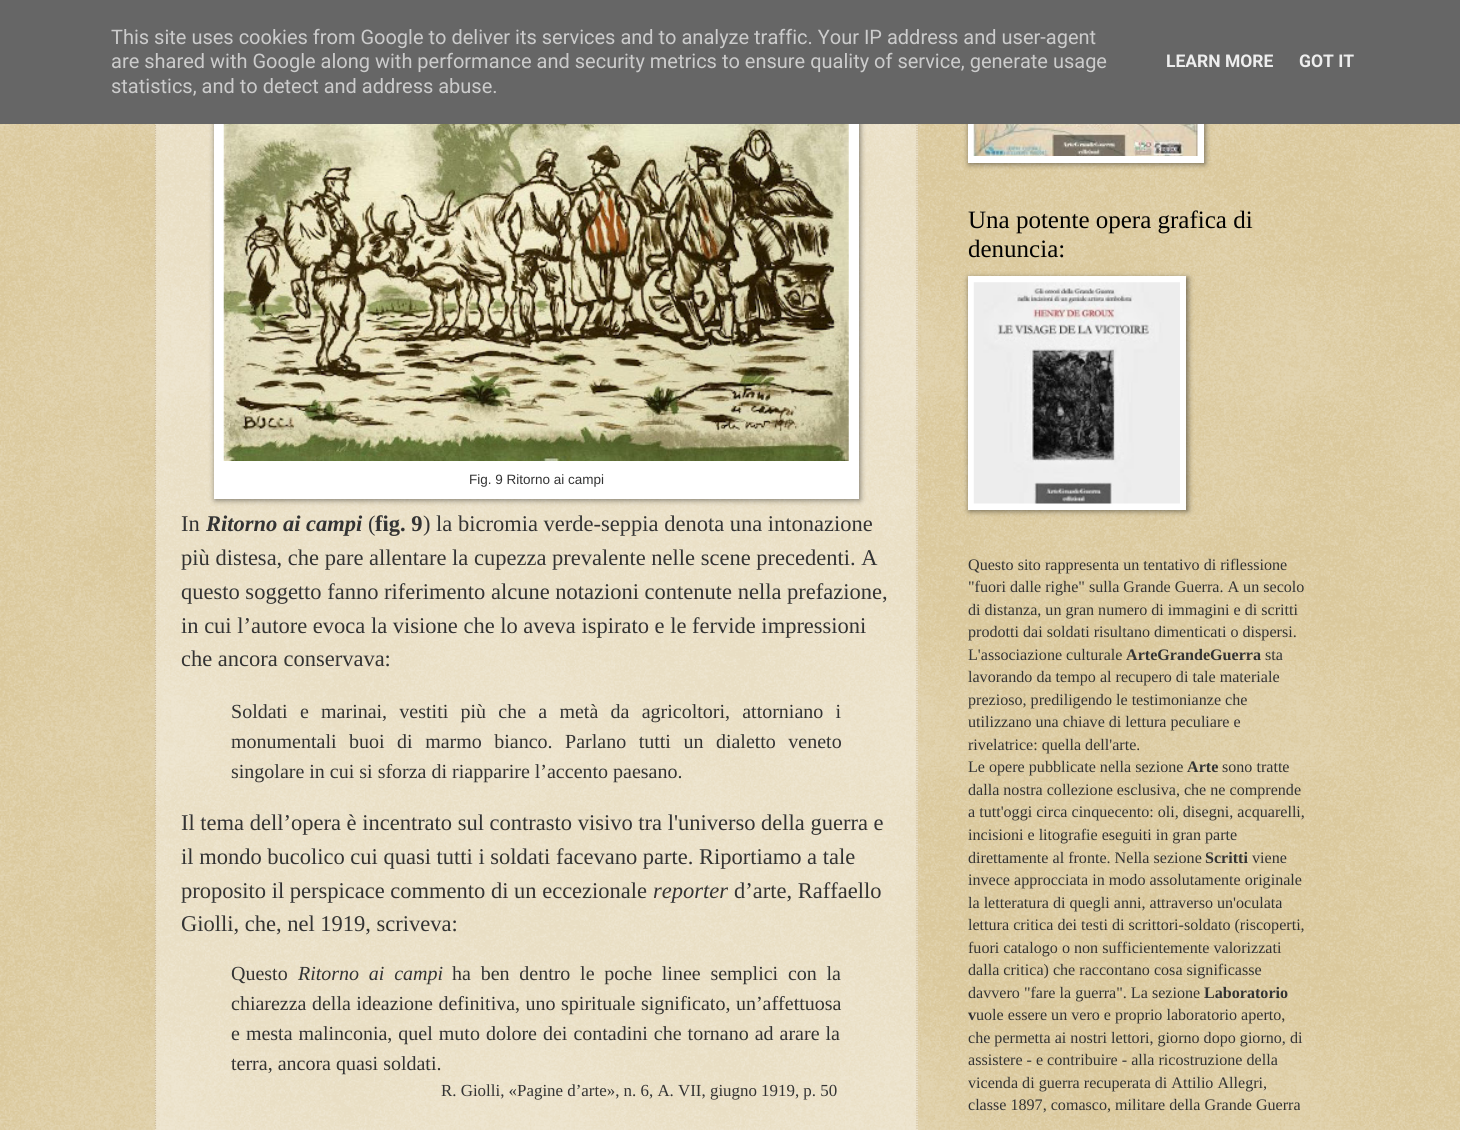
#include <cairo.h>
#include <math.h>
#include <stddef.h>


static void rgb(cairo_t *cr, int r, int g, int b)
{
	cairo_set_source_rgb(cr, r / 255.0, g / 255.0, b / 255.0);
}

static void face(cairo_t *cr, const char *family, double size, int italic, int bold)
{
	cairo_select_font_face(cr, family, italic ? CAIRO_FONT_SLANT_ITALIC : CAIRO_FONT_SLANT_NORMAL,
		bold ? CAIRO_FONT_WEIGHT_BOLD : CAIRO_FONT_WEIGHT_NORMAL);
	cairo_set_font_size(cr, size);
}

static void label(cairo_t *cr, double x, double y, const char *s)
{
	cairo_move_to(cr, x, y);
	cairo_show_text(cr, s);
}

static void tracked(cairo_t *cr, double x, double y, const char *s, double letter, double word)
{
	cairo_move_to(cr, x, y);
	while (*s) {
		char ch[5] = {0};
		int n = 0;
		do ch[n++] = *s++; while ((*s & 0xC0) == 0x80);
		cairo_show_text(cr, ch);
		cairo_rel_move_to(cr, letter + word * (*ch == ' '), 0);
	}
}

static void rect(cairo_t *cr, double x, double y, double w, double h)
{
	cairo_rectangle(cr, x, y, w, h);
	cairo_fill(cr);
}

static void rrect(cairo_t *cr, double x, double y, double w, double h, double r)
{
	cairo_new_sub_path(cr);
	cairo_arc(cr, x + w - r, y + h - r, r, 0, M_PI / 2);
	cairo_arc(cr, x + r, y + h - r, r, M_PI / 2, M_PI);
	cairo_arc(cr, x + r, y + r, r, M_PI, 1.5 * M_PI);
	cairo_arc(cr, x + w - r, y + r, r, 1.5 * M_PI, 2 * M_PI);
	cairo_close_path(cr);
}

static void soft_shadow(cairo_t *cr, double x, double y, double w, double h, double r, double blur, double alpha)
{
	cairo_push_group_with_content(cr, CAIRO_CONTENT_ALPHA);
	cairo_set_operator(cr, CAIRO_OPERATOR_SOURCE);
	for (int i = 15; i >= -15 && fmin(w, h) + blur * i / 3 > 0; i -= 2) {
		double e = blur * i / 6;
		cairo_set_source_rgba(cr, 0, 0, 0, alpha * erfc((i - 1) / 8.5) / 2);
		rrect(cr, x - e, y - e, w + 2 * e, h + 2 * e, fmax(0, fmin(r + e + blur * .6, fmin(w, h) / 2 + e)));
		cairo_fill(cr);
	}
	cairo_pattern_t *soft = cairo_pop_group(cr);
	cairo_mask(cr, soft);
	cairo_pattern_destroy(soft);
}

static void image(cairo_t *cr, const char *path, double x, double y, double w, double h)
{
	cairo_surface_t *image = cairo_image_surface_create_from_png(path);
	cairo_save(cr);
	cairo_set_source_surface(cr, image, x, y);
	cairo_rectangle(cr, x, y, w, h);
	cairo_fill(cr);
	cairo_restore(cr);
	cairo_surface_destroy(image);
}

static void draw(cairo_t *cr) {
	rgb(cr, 192, 161, 84);
	cairo_paint(cr);
	image(cr, "image0.png", 0, 124, 1460, 1006);
	cairo_set_source_rgba(cr, 1, 1, 1, 0.4);
	rect(cr, 155, 124, 763, 1006);
	cairo_new_path(cr);
	cairo_move_to(cr, 917, -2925);
	cairo_line_to(cr, 917, 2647.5);
	rgb(cr, 204, 187, 153);
	cairo_set_line_width(cr, 1.2);
	cairo_set_dash(cr, (double[]){1.25, 1.25}, 2, 0);
	cairo_stroke(cr);
	cairo_new_path(cr);
	cairo_move_to(cr, 155.5, -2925);
	cairo_line_to(cr, 155.5, 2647.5);
	cairo_stroke(cr);
	rgb(cr, 0, 0, 0);
	soft_shadow(cr, 215, 8, 645, 492, 0, 3, 0.5);
	soft_shadow(cr, 969, -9, 236, 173, 0, 3, 0.5);
	rgb(cr, 102, 102, 102);
	rect(cr, 0, 0, 1460, 124);
	face(cr, "Roboto", 20, 0, 0);
	rgb(cr, 204, 204, 204);
	label(cr, 111, 44, "This site uses cookies from Google to deliver its services and to analyze traffic. Your IP address and user-agent");
	label(cr, 111, 68, "are shared with Google along with performance and security metrics to ensure quality of service, generate usage");
	label(cr, 111, 93, "statistics, and to detect and address abuse.");
	face(cr, "Roboto", 17.5, 0, 1);
	rgb(cr, 238, 238, 238);
	label(cr, 1166, 67, "LEARN MORE");
	label(cr, 1299, 67, "GOT IT");
	rgb(cr, 255, 255, 255);
	rect(cr, 214, 124, 645, 375);
	image(cr, "image1.png", 223, 124, 626, 337);
	face(cr, "Liberation Sans", 13.5, 0, 0);
	rgb(cr, 51, 51, 51);
	label(cr, 469, 484, "Fig. 9 Ritorno ai campi");
	face(cr, "Liberation Serif", 22.5, 0, 0);
	label(cr, 181, 531, "In");
	face(cr, "Liberation Serif", 22.5, 1, 1);
	label(cr, 206, 531, "Ritorno ai campi");
	face(cr, "Liberation Serif", 22.5, 0, 0);
	label(cr, 368, 531, "(");
	face(cr, "Liberation Serif", 22.5, 0, 1);
	label(cr, 375, 531, "fig. 9");
	face(cr, "Liberation Serif", 22.5, 0, 0);
	label(cr, 423, 531, ") la bicromia verde-seppia denota una intonazione");
	label(cr, 181, 565, "più distesa, che pare allentare la cupezza prevalente nelle scene precedenti. A");
	label(cr, 181, 599, "questo soggetto fanno riferimento alcune notazioni contenute nella prefazione,");
	label(cr, 181, 633, "in cui l’autore evoca la visione che lo aveva ispirato e le fervide impressioni");
	label(cr, 181, 666, "che ancora conservava:");
	face(cr, "Liberation Serif", 20, 0, 0);
	tracked(cr, 231, 718, "Soldati e marinai, vestiti più che a metà da agricoltori, attorniano i", 0, 7.25);
	tracked(cr, 231, 748, "monumentali buoi di marmo bianco. Parlano tutti un dialetto veneto", 0, 7.5);
	label(cr, 231, 778, "singolare in cui si sforza di riapparire l’accento paesano.");
	face(cr, "Liberation Serif", 22.5, 0, 0);
	label(cr, 181, 830, "Il tema dell’opera è incentrato sul contrasto visivo tra l'universo della guerra e");
	label(cr, 181, 864, "il mondo bucolico cui quasi tutti i soldati facevano parte. Riportiamo a tale");
	label(cr, 181, 898, "proposito il perspicace commento di un eccezionale");
	face(cr, "Liberation Serif", 22.5, 1, 0);
	label(cr, 653, 898, "reporter");
	face(cr, "Liberation Serif", 22.5, 0, 0);
	label(cr, 734, 898, "d’arte, Raffaello");
	label(cr, 181, 931, "Giolli, che, nel 1919, scriveva:");
	face(cr, "Liberation Serif", 20, 0, 0);
	label(cr, 231, 980, "Questo");
	face(cr, "Liberation Serif", 20, 1, 0);
	tracked(cr, 298, 980, "Ritorno ai campi", 0, 4.75);
	face(cr, "Liberation Serif", 20, 0, 0);
	tracked(cr, 452, 980, "ha ben dentro le poche linee semplici con la", 0, 4.75);
	tracked(cr, 231, 1010, "chiarezza della ideazione definitiva, uno spirituale significato, un’affettuosa", 0, 0.5);
	tracked(cr, 231, 1040, "e mesta malinconia, quel muto dolore dei contadini che tornano ad arare la", 0, 1);
	label(cr, 231, 1070, "terra, ancora quasi soldati.");
	face(cr, "Liberation Serif", 16.9, 0, 0);
	label(cr, 441, 1096, "R. Giolli, «Pagine d’arte», n. 6, A. VII, giugno 1919, p. 50");
	rgb(cr, 255, 255, 255);
	rect(cr, 968, 124, 236, 39);
	image(cr, "image2.png", 973, 124, 225, 32);
	face(cr, "Liberation Serif", 25, 0, 0);
	rgb(cr, 0, 0, 0);
	label(cr, 968, 228, "Una potente opera grafica di");
	label(cr, 968, 257, "denuncia:");
	rgb(cr, 0, 0, 0);
	soft_shadow(cr, 969, 278, 219, 233, 0, 3, 0.5);
	rgb(cr, 255, 255, 255);
	rect(cr, 968, 276, 218, 234);
	image(cr, "image3.png", 973, 282, 207, 222);
	face(cr, "Liberation Serif", 16.1, 0, 0);
	rgb(cr, 51, 51, 51);
	label(cr, 968, 570, "Questo sito rappresenta un tentativo di riflessione");
	label(cr, 968, 592, "\"fuori dalle righe\" sulla Grande Guerra. A un secolo");
	label(cr, 968, 615, "di distanza, un gran numero di immagini e di scritti");
	label(cr, 968, 637, "prodotti dai soldati risultano dimenticati o dispersi.");
	label(cr, 968, 660, "L'associazione culturale");
	face(cr, "Liberation Serif", 16.1, 0, 1);
	label(cr, 1126, 660, "ArteGrandeGuerra");
	face(cr, "Liberation Serif", 16.1, 0, 0);
	label(cr, 1265, 660, "sta");
	label(cr, 968, 682, "lavorando da tempo al recupero di tale materiale");
	label(cr, 968, 705, "prezioso, prediligendo le testimonianze che");
	label(cr, 968, 727, "utilizzano una chiave di lettura peculiare e");
	label(cr, 968, 750, "rivelatrice: quella dell'arte.");
	label(cr, 968, 772, "Le opere pubblicate nella sezione");
	face(cr, "Liberation Serif", 16.1, 0, 1);
	label(cr, 1187, 772, "Arte");
	face(cr, "Liberation Serif", 16.1, 0, 0);
	label(cr, 1222, 772, "sono tratte");
	label(cr, 968, 795, "dalla nostra collezione esclusiva, che ne comprende");
	label(cr, 968, 817, "a tutt'oggi circa cinquecento: oli, disegni, acquarelli,");
	label(cr, 968, 840, "incisioni e litografie eseguiti in gran parte");
	label(cr, 968, 863, "direttamente al fronte. Nella sezione");
	face(cr, "Liberation Serif", 16.1, 0, 1);
	label(cr, 1205, 863, "Scritti");
	face(cr, "Liberation Serif", 16.1, 0, 0);
	label(cr, 1252, 863, "viene");
	label(cr, 968, 885, "invece approcciata in modo assolutamente originale");
	label(cr, 968, 908, "la letteratura di quegli anni, attraverso un'oculata");
	label(cr, 968, 930, "lettura critica dei testi di scrittori-soldato (riscoperti,");
	label(cr, 968, 953, "fuori catalogo o non sufficientemente valorizzati");
	label(cr, 968, 975, "dalla critica) che raccontano cosa significasse");
	label(cr, 968, 998, "davvero \"fare la guerra\". La sezione");
	face(cr, "Liberation Serif", 16.1, 0, 1);
	label(cr, 1204, 998, "Laboratorio");
	label(cr, 968, 1020, "v");
	face(cr, "Liberation Serif", 16.1, 0, 0);
	label(cr, 976, 1020, "uole essere un vero e proprio laboratorio aperto,");
	label(cr, 968, 1043, "che permetta ai nostri lettori, giorno dopo giorno, di");
	label(cr, 968, 1065, "assistere - e contribuire - alla ricostruzione della");
	label(cr, 968, 1088, "vicenda di guerra recuperata di Attilio Allegri,");
	label(cr, 968, 1110, "classe 1897, comasco, militare della Grande Guerra");
}

int main(void) {
	cairo_surface_t *surface = cairo_image_surface_create(CAIRO_FORMAT_RGB24, 1460, 1130);
	cairo_t *cr = cairo_create(surface);
	cairo_font_options_t *options = cairo_font_options_create();
	cairo_font_options_set_hint_metrics(options, CAIRO_HINT_METRICS_OFF);
	cairo_font_options_set_hint_style(options, CAIRO_HINT_STYLE_NONE);
	cairo_set_font_options(cr, options);
	cairo_set_miter_limit(cr, 4);
	draw(cr);
	cairo_surface_write_to_png(surface, "render.png");
	cairo_font_options_destroy(options);
	cairo_destroy(cr);
	cairo_surface_destroy(surface);
	return 0;
}
